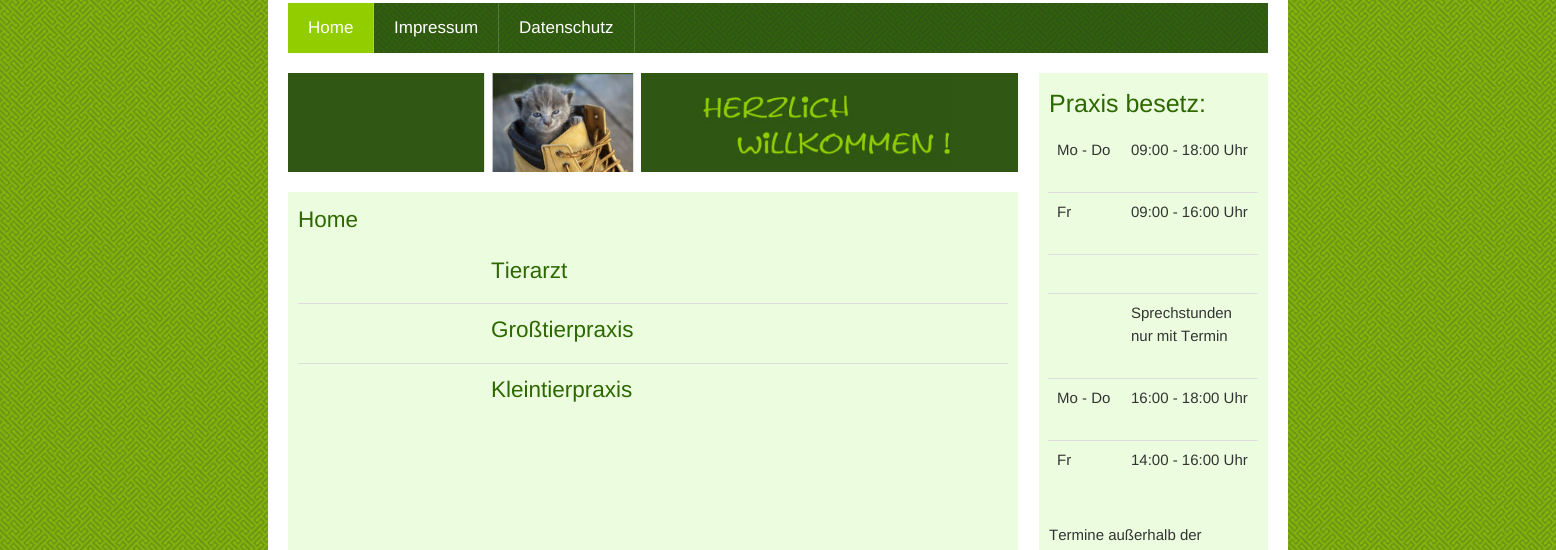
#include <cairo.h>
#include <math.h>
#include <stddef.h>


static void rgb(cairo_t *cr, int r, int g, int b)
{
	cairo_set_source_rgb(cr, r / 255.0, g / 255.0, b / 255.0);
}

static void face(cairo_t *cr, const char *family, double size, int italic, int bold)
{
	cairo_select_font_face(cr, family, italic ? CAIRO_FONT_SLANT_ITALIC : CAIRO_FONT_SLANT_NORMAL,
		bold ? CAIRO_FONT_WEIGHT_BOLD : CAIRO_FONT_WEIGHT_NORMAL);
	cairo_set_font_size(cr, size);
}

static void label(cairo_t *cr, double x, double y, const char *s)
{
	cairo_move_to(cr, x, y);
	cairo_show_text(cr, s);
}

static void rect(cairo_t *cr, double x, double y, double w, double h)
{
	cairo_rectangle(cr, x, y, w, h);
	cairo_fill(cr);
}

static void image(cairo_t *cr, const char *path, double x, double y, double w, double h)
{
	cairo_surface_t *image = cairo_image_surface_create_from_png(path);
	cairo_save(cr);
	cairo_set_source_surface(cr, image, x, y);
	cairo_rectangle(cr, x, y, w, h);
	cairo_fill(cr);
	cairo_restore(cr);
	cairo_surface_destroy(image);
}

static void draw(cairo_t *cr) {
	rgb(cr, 146, 205, 0);
	cairo_paint(cr);
	image(cr, "image0.png", 0, 0, 1556, 550);
	rgb(cr, 255, 255, 255);
	rect(cr, 268, 0, 1020, 550);
	rgb(cr, 44, 103, 0);
	rect(cr, 374, 3, 894, 50);
	image(cr, "image1.png", 374, 3, 894, 50);
	rgb(cr, 146, 205, 0);
	rect(cr, 288, 3, 85, 50);
	rgb(cr, 166, 214, 47);
	rect(cr, 373, 3, 1, 50);
	face(cr, "Liberation Sans", 17, 0, 0);
	rgb(cr, 255, 255, 255);
	label(cr, 308, 33, "Home");
	cairo_set_source_rgba(cr, 1, 1, 1, 0.18);
	rect(cr, 498, 3, 1, 50);
	rgb(cr, 255, 255, 255);
	label(cr, 394, 33, "Impressum");
	cairo_set_source_rgba(cr, 1, 1, 1, 0.18);
	rect(cr, 634, 3, 1, 50);
	rgb(cr, 255, 255, 255);
	label(cr, 519, 33, "Datenschutz");
	image(cr, "image2.png", 288, 73, 730, 99);
	image(cr, "image3.png", 513, 74, 438, 98);
	rgb(cr, 236, 253, 223);
	rect(cr, 288, 192, 730, 358);
	face(cr, "Liberation Sans", 22.5, 0, 0);
	rgb(cr, 44, 103, 0);
	label(cr, 298, 227, "Home");
	label(cr, 491, 278, "Tierarzt");
	rgb(cr, 221, 221, 221);
	rect(cr, 298, 303, 710, 1);
	rgb(cr, 44, 103, 0);
	label(cr, 491, 337, "Großtierpraxis");
	rgb(cr, 221, 221, 221);
	rect(cr, 298, 363, 710, 1);
	rgb(cr, 44, 103, 0);
	label(cr, 491, 397, "Kleintierpraxis");
	rgb(cr, 236, 253, 223);
	rect(cr, 1039, 73, 229, 477);
	face(cr, "Liberation Sans", 25, 0, 0);
	rgb(cr, 44, 103, 0);
	label(cr, 1049, 112, "Praxis besetz:");
	face(cr, "Liberation Sans", 15, 0, 0);
	rgb(cr, 51, 51, 51);
	label(cr, 1057, 155, "Mo - Do");
	label(cr, 1131, 155, "09:00 - 18:00 Uhr");
	label(cr, 1057, 217, "Fr");
	rgb(cr, 221, 221, 221);
	rect(cr, 1048, 192, 210, 1);
	rgb(cr, 51, 51, 51);
	label(cr, 1131, 217, "09:00 - 16:00 Uhr");
	rgb(cr, 221, 221, 221);
	rect(cr, 1048, 254, 210, 1);
	rect(cr, 1048, 293, 210, 1);
	rgb(cr, 51, 51, 51);
	label(cr, 1131, 318, "Sprechstunden");
	label(cr, 1131, 341, "nur mit Termin");
	label(cr, 1057, 403, "Mo - Do");
	rgb(cr, 221, 221, 221);
	rect(cr, 1048, 378, 210, 1);
	rgb(cr, 51, 51, 51);
	label(cr, 1131, 403, "16:00 - 18:00 Uhr");
	label(cr, 1057, 465, "Fr");
	rgb(cr, 221, 221, 221);
	rect(cr, 1048, 440, 210, 1);
	rgb(cr, 51, 51, 51);
	label(cr, 1131, 465, "14:00 - 16:00 Uhr");
	label(cr, 1049, 540, "Termine außerhalb der");
}

int main(void) {
	cairo_surface_t *surface = cairo_image_surface_create(CAIRO_FORMAT_RGB24, 1556, 550);
	cairo_t *cr = cairo_create(surface);
	cairo_font_options_t *options = cairo_font_options_create();
	cairo_font_options_set_hint_metrics(options, CAIRO_HINT_METRICS_OFF);
	cairo_font_options_set_hint_style(options, CAIRO_HINT_STYLE_NONE);
	cairo_set_font_options(cr, options);
	cairo_set_miter_limit(cr, 4);
	draw(cr);
	cairo_surface_write_to_png(surface, "render.png");
	cairo_font_options_destroy(options);
	cairo_destroy(cr);
	cairo_surface_destroy(surface);
	return 0;
}
